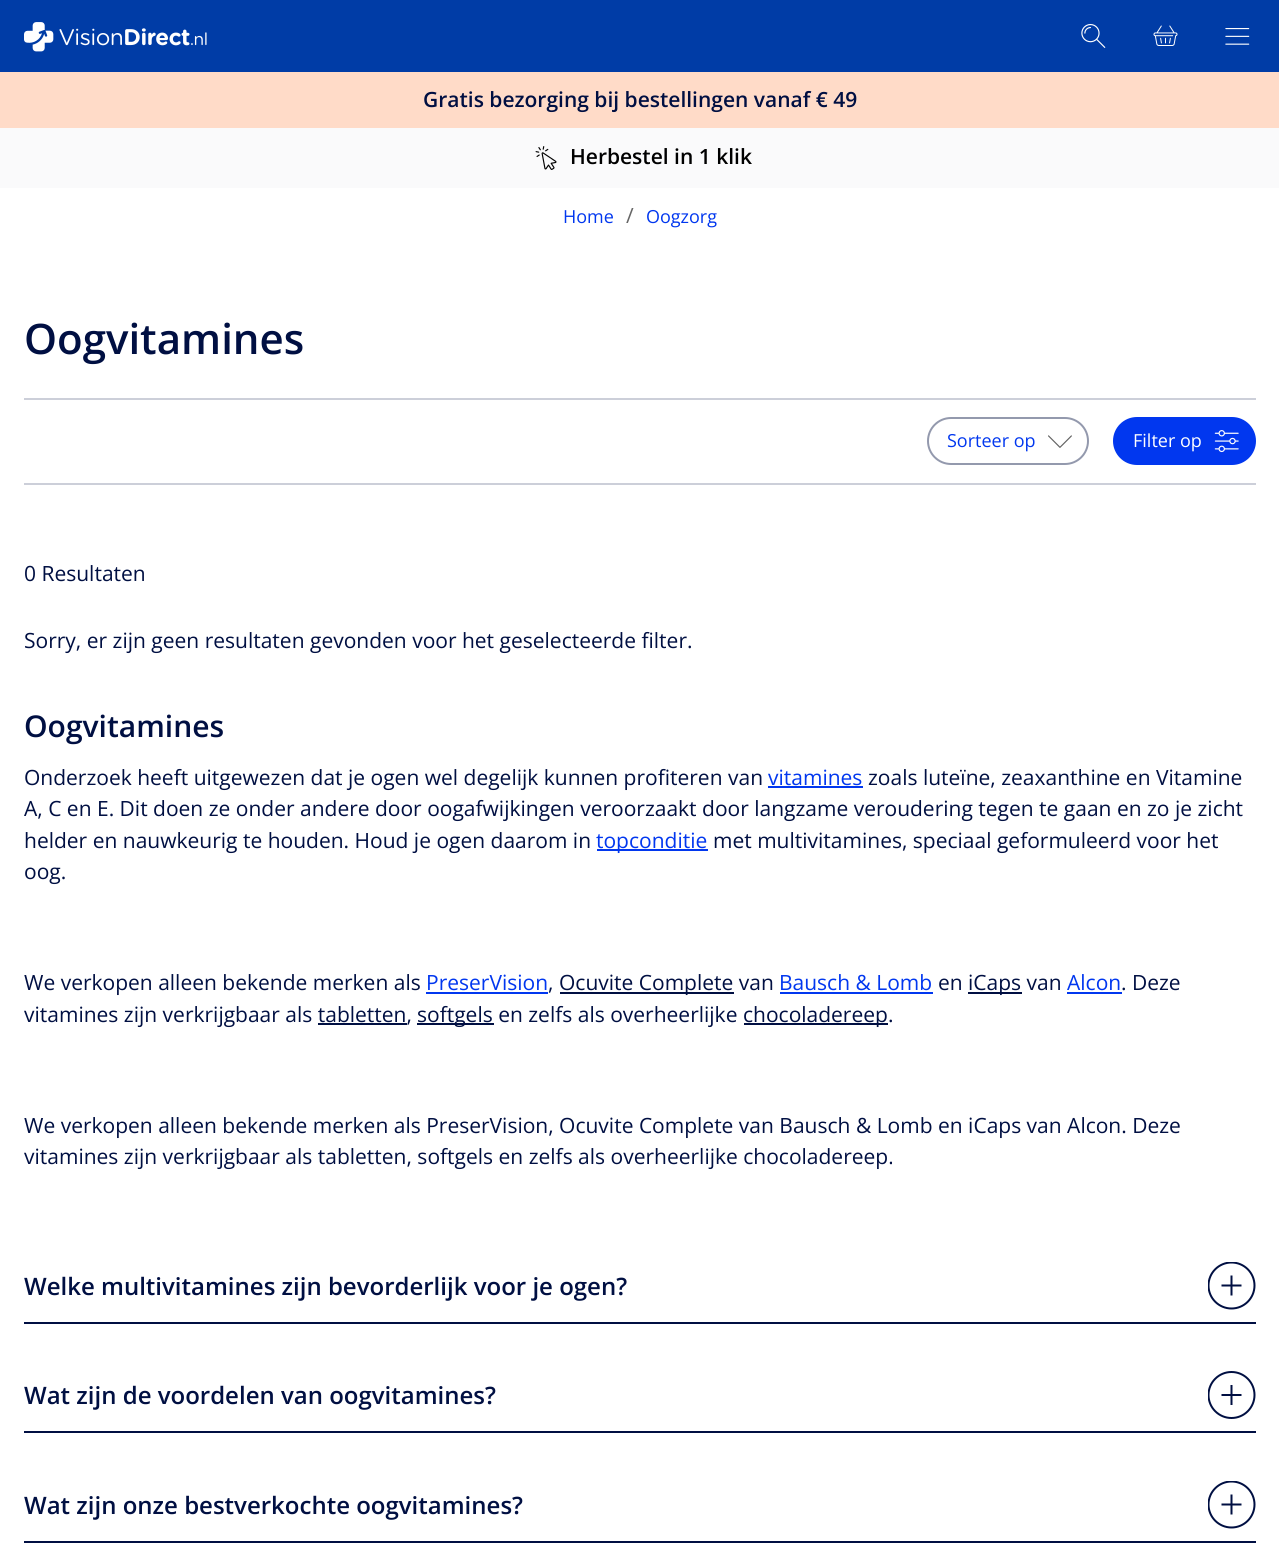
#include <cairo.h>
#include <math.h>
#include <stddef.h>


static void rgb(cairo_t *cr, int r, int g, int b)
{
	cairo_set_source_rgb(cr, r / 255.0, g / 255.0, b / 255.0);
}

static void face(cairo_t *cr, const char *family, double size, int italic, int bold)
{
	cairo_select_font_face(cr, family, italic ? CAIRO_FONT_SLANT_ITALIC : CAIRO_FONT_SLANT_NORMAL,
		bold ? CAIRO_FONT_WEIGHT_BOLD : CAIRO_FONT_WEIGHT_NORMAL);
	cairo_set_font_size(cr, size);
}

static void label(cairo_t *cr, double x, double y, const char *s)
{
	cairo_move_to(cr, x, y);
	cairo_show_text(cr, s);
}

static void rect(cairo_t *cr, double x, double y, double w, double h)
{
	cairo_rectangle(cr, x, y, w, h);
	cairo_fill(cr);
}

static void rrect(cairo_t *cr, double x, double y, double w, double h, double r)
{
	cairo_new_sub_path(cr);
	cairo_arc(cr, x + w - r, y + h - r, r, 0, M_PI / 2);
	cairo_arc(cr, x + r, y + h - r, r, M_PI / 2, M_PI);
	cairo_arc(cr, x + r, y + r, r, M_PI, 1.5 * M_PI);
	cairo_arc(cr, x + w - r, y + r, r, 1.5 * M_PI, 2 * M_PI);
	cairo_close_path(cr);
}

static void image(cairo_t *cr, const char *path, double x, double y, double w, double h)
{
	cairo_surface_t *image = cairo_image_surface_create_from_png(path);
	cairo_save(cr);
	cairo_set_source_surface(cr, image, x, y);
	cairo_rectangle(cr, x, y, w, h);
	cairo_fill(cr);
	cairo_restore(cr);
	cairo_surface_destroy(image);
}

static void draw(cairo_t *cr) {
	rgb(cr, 255, 255, 255);
	cairo_paint(cr);
	rgb(cr, 0, 60, 166);
	rect(cr, 0, 0, 1279, 72);
	image(cr, "image0.png", 24, 22, 183, 30);
	image(cr, "image1.png", 1081, 24, 25, 24);
	image(cr, "image2.png", 1153, 25, 25, 21);
	image(cr, "image3.png", 1225, 28, 25, 17);
	rgb(cr, 255, 219, 200);
	rect(cr, 0, 72, 1279, 56);
	face(cr, "Open Sans SemiBold", 21, 0, 0);
	rgb(cr, 0, 15, 66);
	label(cr, 423, 107, "Gratis bezorging bij bestellingen vanaf € 49");
	rgb(cr, 250, 250, 251);
	rect(cr, 0, 128, 1279, 60);
	image(cr, "image4.png", 535, 146, 22, 24);
	rgb(cr, 0, 0, 0);
	label(cr, 570, 164, "Herbestel in 1 klik");
	face(cr, "Open Sans", 18, 0, 0);
	rgb(cr, 1, 55, 239);
	label(cr, 563, 223, "Home");
	face(cr, "Open Sans", 21, 0, 0);
	rgb(cr, 102, 102, 102);
	label(cr, 626, 223, "/");
	face(cr, "Open Sans", 18, 0, 0);
	rgb(cr, 1, 55, 239);
	label(cr, 646, 223, "Oogzorg");
	face(cr, "Open Sans SemiBold", 42, 0, 0);
	rgb(cr, 0, 15, 66);
	label(cr, 24, 354, "Oogvitamines");
	rgb(cr, 204, 207, 217);
	rect(cr, 24, 398, 1232, 2);
	rrect(cr, 928, 418, 160, 46, 23);
	rgb(cr, 147, 153, 173);
	cairo_stroke(cr);
	face(cr, "Open Sans", 18, 0, 0);
	rgb(cr, 1, 55, 239);
	label(cr, 947, 447, "Sorteer op");
	image(cr, "image5.png", 1048, 435, 24, 13);
	rrect(cr, 1114, 418, 141, 46, 23);
	cairo_fill_preserve(cr);
	cairo_stroke(cr);
	rgb(cr, 255, 255, 255);
	label(cr, 1133, 447, "Filter op");
	image(cr, "image6.png", 1214, 430, 25, 23);
	rgb(cr, 204, 207, 217);
	rect(cr, 24, 483, 1232, 2);
	face(cr, "Open Sans", 21, 0, 0);
	rgb(cr, 0, 15, 66);
	label(cr, 24, 581, "0 Resultaten");
	label(cr, 24, 648, "Sorry, er zijn geen resultaten gevonden voor het geselecteerde filter.");
	face(cr, "Open Sans SemiBold", 30, 0, 0);
	label(cr, 24, 737, "Oogvitamines");
	face(cr, "Open Sans", 21, 0, 0);
	label(cr, 24, 785, "Onderzoek heeft uitgewezen dat je ogen wel degelijk kunnen profiteren van");
	rgb(cr, 1, 55, 239);
	label(cr, 768, 785, "vitamines");
	rect(cr, 768, 786, 95, 2);
	rgb(cr, 0, 15, 66);
	label(cr, 868, 785, "zoals luteïne, zeaxanthine en Vitamine");
	label(cr, 24, 816, "A, C en E. Dit doen ze onder andere door oogafwijkingen veroorzaakt door langzame veroudering tegen te gaan en zo je zicht");
	label(cr, 24, 848, "helder en nauwkeurig te houden. Houd je ogen daarom in");
	rgb(cr, 1, 55, 239);
	rect(cr, 597, 849, 111, 2);
	label(cr, 596, 848, "topconditie");
	rgb(cr, 0, 15, 66);
	label(cr, 713, 848, "met multivitamines, speciaal geformuleerd voor het");
	label(cr, 24, 879, "oog.");
	label(cr, 24, 990, "We verkopen alleen bekende merken als");
	rgb(cr, 1, 55, 239);
	label(cr, 426, 990, "PreserVision");
	rect(cr, 426, 992, 122, 2);
	rgb(cr, 0, 15, 66);
	label(cr, 548, 990, ",");
	rect(cr, 560, 992, 174, 2);
	label(cr, 559, 990, "Ocuvite Complete van");
	rgb(cr, 1, 55, 239);
	label(cr, 779, 990, "Bausch & Lomb");
	rect(cr, 780, 992, 153, 2);
	rgb(cr, 0, 15, 66);
	label(cr, 938, 990, "en");
	rect(cr, 968, 992, 54, 2);
	label(cr, 968, 990, "iCaps van");
	rgb(cr, 1, 55, 239);
	label(cr, 1067, 990, "Alcon");
	rect(cr, 1067, 992, 55, 2);
	rgb(cr, 0, 15, 66);
	label(cr, 1121, 990, ". Deze");
	label(cr, 24, 1022, "vitamines zijn verkrijgbaar als tabletten,");
	rect(cr, 417, 1023, 77, 2);
	label(cr, 417, 1022, "softgels en zelfs als overheerlijke");
	rect(cr, 744, 1023, 144, 2);
	label(cr, 743, 1022, "chocoladereep.");
	rect(cr, 318, 1023, 89, 2);
	label(cr, 24, 1133, "We verkopen alleen bekende merken als PreserVision, Ocuvite Complete van Bausch & Lomb en iCaps van Alcon. Deze");
	label(cr, 24, 1164, "vitamines zijn verkrijgbaar als tabletten, softgels en zelfs als overheerlijke chocoladereep.");
	rect(cr, 24, 1322, 1232, 2);
	face(cr, "Open Sans SemiBold", 24, 0, 0);
	label(cr, 24, 1295, "Welke multivitamines zijn bevorderlijk voor je ogen?");
	image(cr, "image7.png", 1208, 1262, 48, 48);
	rect(cr, 24, 1431, 1232, 2);
	label(cr, 24, 1404, "Wat zijn de voordelen van oogvitamines?");
	image(cr, "image8.png", 1208, 1371, 48, 48);
	rect(cr, 24, 1541, 1232, 2);
	label(cr, 24, 1514, "Wat zijn onze bestverkochte oogvitamines?");
	image(cr, "image7.png", 1208, 1481, 48, 48);
}

int main(void) {
	cairo_surface_t *surface = cairo_image_surface_create(CAIRO_FORMAT_RGB24, 1279, 1547);
	cairo_t *cr = cairo_create(surface);
	cairo_font_options_t *options = cairo_font_options_create();
	cairo_font_options_set_hint_metrics(options, CAIRO_HINT_METRICS_OFF);
	cairo_font_options_set_hint_style(options, CAIRO_HINT_STYLE_NONE);
	cairo_set_font_options(cr, options);
	cairo_set_miter_limit(cr, 4);
	draw(cr);
	cairo_surface_write_to_png(surface, "render.png");
	cairo_font_options_destroy(options);
	cairo_destroy(cr);
	cairo_surface_destroy(surface);
	return 0;
}
